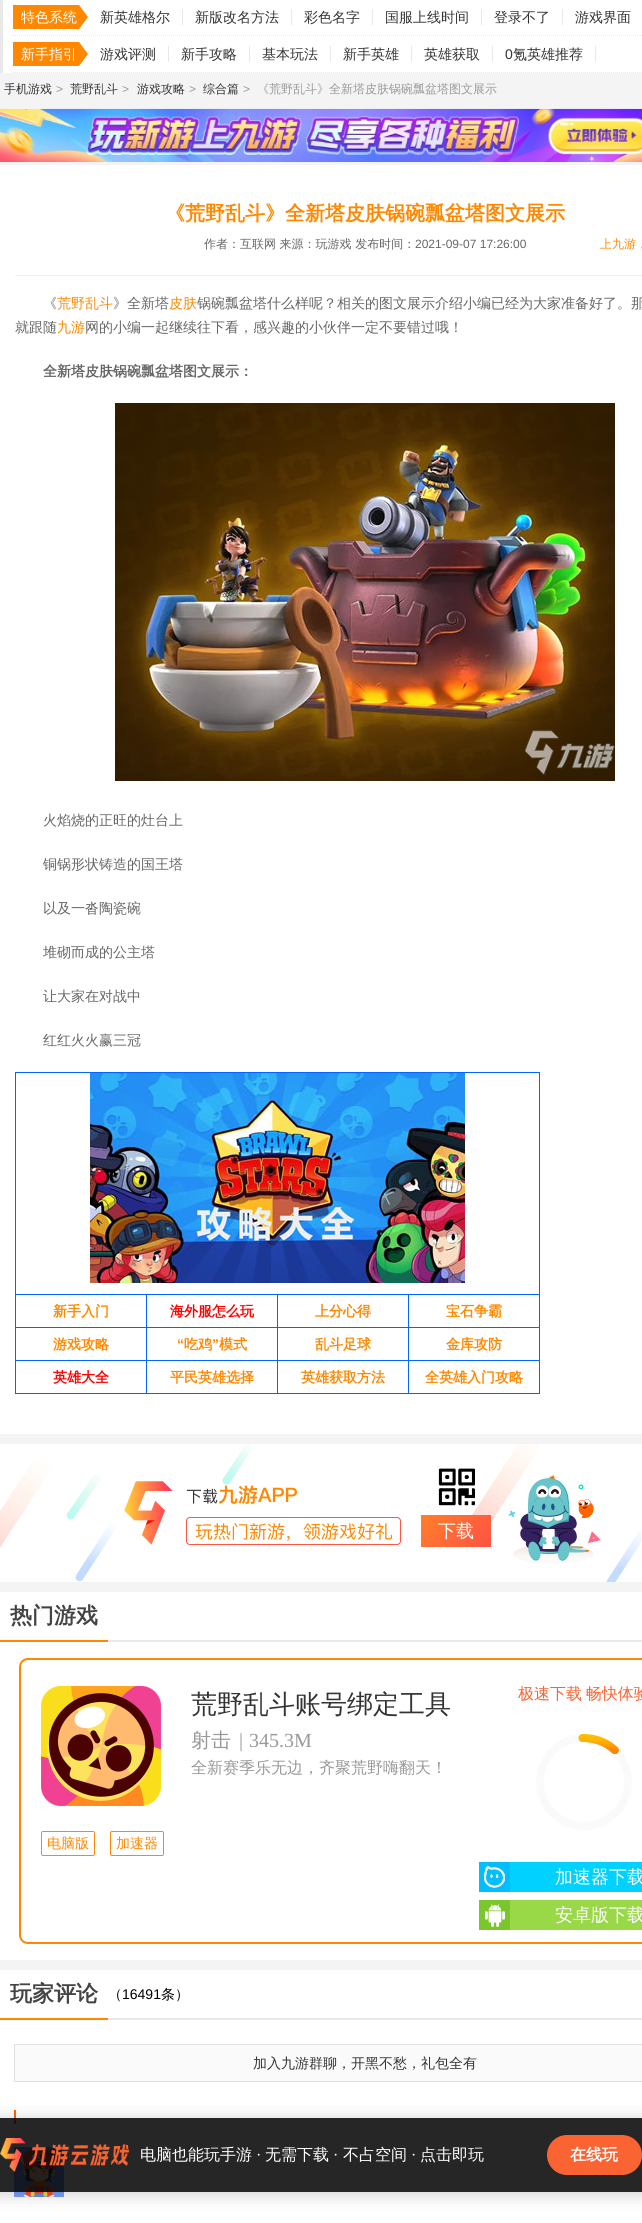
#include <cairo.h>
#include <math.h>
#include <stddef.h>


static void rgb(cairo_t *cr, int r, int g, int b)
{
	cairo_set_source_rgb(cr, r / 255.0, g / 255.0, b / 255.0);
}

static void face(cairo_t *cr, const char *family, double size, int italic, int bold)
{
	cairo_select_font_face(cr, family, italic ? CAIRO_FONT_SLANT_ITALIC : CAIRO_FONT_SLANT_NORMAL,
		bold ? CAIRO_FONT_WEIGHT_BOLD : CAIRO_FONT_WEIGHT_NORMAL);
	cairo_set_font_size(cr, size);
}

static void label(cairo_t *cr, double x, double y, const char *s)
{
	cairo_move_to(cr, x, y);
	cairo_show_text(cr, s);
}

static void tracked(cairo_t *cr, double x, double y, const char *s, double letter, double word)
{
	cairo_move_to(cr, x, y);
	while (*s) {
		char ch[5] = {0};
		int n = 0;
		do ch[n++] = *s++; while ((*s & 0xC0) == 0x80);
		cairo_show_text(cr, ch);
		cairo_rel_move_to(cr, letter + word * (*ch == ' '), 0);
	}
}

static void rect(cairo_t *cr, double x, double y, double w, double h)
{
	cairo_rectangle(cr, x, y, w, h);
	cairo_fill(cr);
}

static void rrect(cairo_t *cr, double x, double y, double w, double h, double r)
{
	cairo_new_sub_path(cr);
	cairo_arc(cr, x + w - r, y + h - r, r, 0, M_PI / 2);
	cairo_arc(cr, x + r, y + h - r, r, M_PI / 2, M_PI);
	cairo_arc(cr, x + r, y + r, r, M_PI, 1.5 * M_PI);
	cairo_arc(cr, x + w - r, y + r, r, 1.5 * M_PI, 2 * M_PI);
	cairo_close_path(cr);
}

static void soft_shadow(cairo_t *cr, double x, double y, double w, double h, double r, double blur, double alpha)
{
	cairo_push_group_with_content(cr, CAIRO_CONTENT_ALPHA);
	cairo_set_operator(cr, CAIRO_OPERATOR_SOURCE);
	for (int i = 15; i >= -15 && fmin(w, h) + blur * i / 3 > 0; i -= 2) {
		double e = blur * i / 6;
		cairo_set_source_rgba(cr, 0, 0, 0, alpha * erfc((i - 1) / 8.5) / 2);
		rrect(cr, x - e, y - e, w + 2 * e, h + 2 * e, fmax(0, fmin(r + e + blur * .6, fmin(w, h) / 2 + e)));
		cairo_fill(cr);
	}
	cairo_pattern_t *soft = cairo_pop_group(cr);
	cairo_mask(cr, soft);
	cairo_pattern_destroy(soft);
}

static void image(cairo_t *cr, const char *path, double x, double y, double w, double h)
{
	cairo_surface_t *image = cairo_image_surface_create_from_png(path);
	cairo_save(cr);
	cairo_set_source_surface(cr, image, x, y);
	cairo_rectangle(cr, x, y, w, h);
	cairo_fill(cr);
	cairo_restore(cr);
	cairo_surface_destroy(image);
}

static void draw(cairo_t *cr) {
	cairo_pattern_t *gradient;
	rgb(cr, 244, 244, 244);
	cairo_paint(cr);
	rgb(cr, 255, 255, 255);
	rect(cr, 3, 0, 639, 73);
	rgb(cr, 233, 233, 233);
	rect(cr, 0, 0, 3, 73);
	cairo_new_path(cr);
	cairo_move_to(cr, 13, 35.5);
	cairo_line_to(cr, 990, 35.5);
	cairo_set_line_width(cr, 1);
	cairo_set_dash(cr, (double[]){1, 1}, 2, 0);
	cairo_stroke(cr);
	image(cr, "image0.png", 13, 5, 75, 24);
	face(cr, "WenQuanYi Zen Hei Medium", 14, 0, 0);
	rgb(cr, 255, 255, 255);
	label(cr, 21, 22, "特色系统");
	rgb(cr, 51, 51, 51);
	label(cr, 100, 22, "新英雄格尔");
	rgb(cr, 233, 233, 233);
	rect(cr, 182, 9, 1, 16);
	rgb(cr, 51, 51, 51);
	label(cr, 195, 22, "新版改名方法");
	rgb(cr, 233, 233, 233);
	rect(cr, 291, 9, 1, 16);
	rgb(cr, 51, 51, 51);
	label(cr, 304, 22, "彩色名字");
	rgb(cr, 233, 233, 233);
	rect(cr, 372, 9, 1, 16);
	rgb(cr, 51, 51, 51);
	label(cr, 385, 22, "国服上线时间");
	rgb(cr, 233, 233, 233);
	rect(cr, 481, 9, 1, 16);
	rgb(cr, 51, 51, 51);
	label(cr, 494, 22, "登录不了");
	rgb(cr, 233, 233, 233);
	rect(cr, 562, 9, 1, 16);
	rgb(cr, 51, 51, 51);
	label(cr, 575, 22, "游戏界面");
	cairo_new_path(cr);
	cairo_move_to(cr, 13, 72.5);
	cairo_line_to(cr, 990, 72.5);
	rgb(cr, 233, 233, 233);
	cairo_stroke(cr);
	image(cr, "image0.png", 13, 42, 75, 24);
	rgb(cr, 255, 255, 255);
	label(cr, 21, 59, "新手指引");
	rgb(cr, 51, 51, 51);
	label(cr, 100, 59, "游戏评测");
	rgb(cr, 233, 233, 233);
	rect(cr, 168, 46, 1, 16);
	rgb(cr, 51, 51, 51);
	label(cr, 181, 59, "新手攻略");
	rgb(cr, 233, 233, 233);
	rect(cr, 249, 46, 1, 16);
	rgb(cr, 51, 51, 51);
	label(cr, 262, 59, "基本玩法");
	rgb(cr, 233, 233, 233);
	rect(cr, 330, 46, 1, 16);
	rgb(cr, 51, 51, 51);
	label(cr, 343, 59, "新手英雄");
	rgb(cr, 233, 233, 233);
	rect(cr, 411, 46, 1, 16);
	rgb(cr, 51, 51, 51);
	label(cr, 424, 59, "英雄获取");
	rgb(cr, 233, 233, 233);
	rect(cr, 492, 46, 1, 16);
	face(cr, "Liberation Sans", 14, 0, 0);
	rgb(cr, 51, 51, 51);
	label(cr, 505, 59, "0");
	face(cr, "WenQuanYi Zen Hei Medium", 14, 0, 0);
	label(cr, 513, 59, "氪英雄推荐");
	rgb(cr, 233, 233, 233);
	rect(cr, 595, 46, 1, 16);
	face(cr, "WenQuanYi Zen Hei Medium", 12, 0, 0);
	rgb(cr, 51, 51, 51);
	label(cr, 4, 93, "手机游戏");
	face(cr, "Liberation Sans", 12, 0, 0);
	rgb(cr, 153, 153, 153);
	label(cr, 56, 93, ">");
	face(cr, "WenQuanYi Zen Hei Medium", 12, 0, 0);
	rgb(cr, 51, 51, 51);
	label(cr, 70, 93, "荒野乱斗");
	face(cr, "Liberation Sans", 12, 0, 0);
	rgb(cr, 153, 153, 153);
	label(cr, 122, 93, ">");
	face(cr, "WenQuanYi Zen Hei Medium", 12, 0, 0);
	rgb(cr, 51, 51, 51);
	label(cr, 137, 93, "游戏攻略");
	face(cr, "Liberation Sans", 12, 0, 0);
	rgb(cr, 153, 153, 153);
	label(cr, 189, 93, ">");
	face(cr, "WenQuanYi Zen Hei Medium", 12, 0, 0);
	rgb(cr, 51, 51, 51);
	label(cr, 203, 93, "综合篇");
	face(cr, "Liberation Sans", 12, 0, 0);
	rgb(cr, 153, 153, 153);
	label(cr, 243, 93, ">");
	face(cr, "WenQuanYi Zen Hei Medium", 12, 0, 0);
	label(cr, 257, 93, "《荒野乱斗》全新塔皮肤锅碗瓢盆塔图文展示");
	image(cr, "image1.png", 0, 108, 642, 54);
	rgb(cr, 255, 255, 255);
	rect(cr, 0, 165, 642, 1269);
	rgb(cr, 242, 242, 242);
	rect(cr, 15, 275, 627, 1);
	face(cr, "WenQuanYi Zen Hei", 20, 0, 1);
	rgb(cr, 255, 136, 0);
	label(cr, 165, 220, "《荒野乱斗》全新塔皮肤锅碗瓢盆塔图文展示");
	face(cr, "WenQuanYi Zen Hei Medium", 12, 0, 0);
	rgb(cr, 102, 102, 102);
	label(cr, 204, 248, "作者：互联网 来源：玩游戏 发布时间：");
	face(cr, "Liberation Sans", 12, 0, 0);
	label(cr, 415, 248, "2021-09-07 17:26:00");
	face(cr, "WenQuanYi Zen Hei Medium", 12, 0, 0);
	rgb(cr, 255, 136, 0);
	label(cr, 600, 248, "上九游，");
	face(cr, "WenQuanYi Zen Hei Medium", 14, 0, 0);
	rgb(cr, 102, 102, 102);
	label(cr, 43, 308, "《");
	rgb(cr, 255, 136, 0);
	label(cr, 57, 308, "荒野乱斗");
	rgb(cr, 102, 102, 102);
	label(cr, 113, 308, "》全新塔");
	rgb(cr, 255, 136, 0);
	label(cr, 169, 308, "皮肤");
	rgb(cr, 102, 102, 102);
	label(cr, 197, 308, "锅碗瓢盆塔什么样呢？相关的图文展示介绍小编已经为大家准备好了。那");
	label(cr, 15, 332, "就跟随");
	rgb(cr, 255, 136, 0);
	label(cr, 57, 332, "九游");
	rgb(cr, 102, 102, 102);
	label(cr, 85, 332, "网的小编一起继续往下看，感兴趣的小伙伴一定不要错过哦！");
	face(cr, "WenQuanYi Zen Hei", 14, 0, 1);
	label(cr, 43, 376, "全新塔皮肤锅碗瓢盆塔图文展示：");
	image(cr, "image2.png", 115, 403, 500, 378);
	face(cr, "WenQuanYi Zen Hei Medium", 14, 0, 0);
	label(cr, 43, 825, "火焰烧的正旺的灶台上");
	label(cr, 43, 869, "铜锅形状铸造的国王塔");
	label(cr, 43, 913, "以及一沓陶瓷碗");
	label(cr, 43, 957, "堆砌而成的公主塔");
	label(cr, 43, 1001, "让大家在对战中");
	label(cr, 43, 1045, "红红火火赢三冠");
	rgb(cr, 0, 102, 255);
	rect(cr, 15, 1072, 525, 1);
	rect(cr, 539, 1072, 1, 322);
	rect(cr, 15, 1393, 525, 1);
	rect(cr, 15, 1072, 1, 322);
	image(cr, "image3.png", 90, 1073, 375, 210);
	rect(cr, 408, 1294, 132, 1);
	rect(cr, 408, 1327, 132, 1);
	rect(cr, 408, 1360, 132, 1);
	rect(cr, 408, 1360, 1, 34);
	rect(cr, 277, 1360, 132, 1);
	rect(cr, 408, 1327, 1, 34);
	rect(cr, 277, 1327, 132, 1);
	rect(cr, 408, 1294, 1, 34);
	rect(cr, 277, 1294, 132, 1);
	rect(cr, 277, 1360, 1, 34);
	rect(cr, 146, 1360, 132, 1);
	rect(cr, 277, 1327, 1, 34);
	rect(cr, 146, 1327, 132, 1);
	rect(cr, 277, 1294, 1, 34);
	rect(cr, 146, 1294, 132, 1);
	rect(cr, 146, 1360, 1, 34);
	rect(cr, 15, 1360, 132, 1);
	rect(cr, 146, 1327, 1, 34);
	rect(cr, 15, 1327, 132, 1);
	rect(cr, 146, 1294, 1, 34);
	rect(cr, 15, 1294, 132, 1);
	face(cr, "WenQuanYi Zen Hei", 14, 0, 1);
	rgb(cr, 255, 136, 0);
	label(cr, 53, 1316, "新手入门");
	rgb(cr, 255, 0, 0);
	label(cr, 170, 1316, "海外服怎么玩");
	rgb(cr, 255, 136, 0);
	label(cr, 315, 1316, "上分心得");
	label(cr, 446, 1316, "宝石争霸");
	label(cr, 53, 1349, "游戏攻略");
	face(cr, "Liberation Sans", 14, 0, 1);
	label(cr, 177, 1349, "“");
	face(cr, "WenQuanYi Zen Hei", 14, 0, 1);
	label(cr, 184, 1349, "吃鸡");
	face(cr, "Liberation Sans", 14, 0, 1);
	label(cr, 212, 1349, "”");
	face(cr, "WenQuanYi Zen Hei", 14, 0, 1);
	label(cr, 219, 1349, "模式");
	label(cr, 315, 1349, "乱斗足球");
	label(cr, 446, 1349, "金库攻防");
	rgb(cr, 255, 0, 0);
	label(cr, 53, 1382, "英雄大全");
	rgb(cr, 255, 136, 0);
	label(cr, 170, 1382, "平民英雄选择");
	label(cr, 301, 1382, "英雄获取方法");
	label(cr, 425, 1382, "全英雄入门攻略");
	image(cr, "image4.png", 0, 1444, 642, 138);
	image(cr, "image5.png", 438, 1468, 37, 38);
	gradient = cairo_pattern_create_linear(427, 1508, 485, 1554);
	cairo_pattern_add_color_stop_rgba(gradient, 0, 1, 0.498, 0.165, 1);
	cairo_pattern_add_color_stop_rgba(gradient, 1, 1, 0.322, 0.267, 1);
	cairo_set_source(cr, gradient);
	cairo_pattern_destroy(gradient);
	rect(cr, 421, 1515, 70, 32);
	face(cr, "WenQuanYi Zen Hei Medium", 18, 0, 0);
	rgb(cr, 255, 255, 255);
	label(cr, 438, 1537, "下载");
	rect(cr, 0, 1592, 642, 368);
	rgb(cr, 233, 233, 233);
	rect(cr, 108, 1640, 534, 2);
	rgb(cr, 255, 136, 0);
	rect(cr, 0, 1640, 108, 2);
	face(cr, "WenQuanYi Zen Hei", 22, 0, 1);
	rgb(cr, 68, 68, 68);
	label(cr, 10, 1623, "热门游戏");
	rrect(cr, 20, 1659, 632, 284, 8);
	rgb(cr, 255, 136, 2);
	cairo_set_line_width(cr, 2);
	cairo_set_dash(cr, NULL, 0, 0);
	cairo_stroke(cr);
	image(cr, "image6.png", 41, 1686, 120, 120);
	face(cr, "WenQuanYi Zen Hei Medium", 26, 0, 0);
	rgb(cr, 51, 51, 51);
	label(cr, 191, 1713, "荒野乱斗账号绑定工具");
	face(cr, "WenQuanYi Zen Hei Medium", 20, 0, 0);
	rgb(cr, 153, 153, 153);
	label(cr, 191, 1747, "射击");
	face(cr, "Liberation Serif", 20, 0, 0);
	label(cr, 239, 1747, "|");
	label(cr, 249, 1747, "345.3M");
	face(cr, "WenQuanYi Zen Hei Medium", 16, 0, 0);
	label(cr, 191, 1773, "全新赛季乐无边，齐聚荒野嗨翻天！");
	rrect(cr, 41.5, 1831.5, 53, 24, 1.5);
	rgb(cr, 255, 136, 2);
	cairo_set_line_width(cr, 1);
	cairo_stroke(cr);
	face(cr, "WenQuanYi Zen Hei Medium", 14, 0, 0);
	rgb(cr, 255, 136, 0);
	label(cr, 47, 1848, "电脑版");
	rrect(cr, 110.5, 1831.5, 53, 24, 1.5);
	rgb(cr, 255, 136, 2);
	cairo_stroke(cr);
	rgb(cr, 255, 136, 0);
	label(cr, 116, 1848, "加速器");
	face(cr, "WenQuanYi Zen Hei Medium", 16, 0, 0);
	rgb(cr, 249, 100, 50);
	tracked(cr, 518, 1699, "极速下载 畅快体验", 0, -1);
	image(cr, "image7.png", 536, 1734, 96, 96);
	rgb(cr, 0, 209, 255);
	rect(cr, 510, 1862, 132, 30);
	rgb(cr, 0, 190, 255);
	rect(cr, 479, 1862, 31, 30);
	image(cr, "image8.png", 484, 1866, 21, 22);
	face(cr, "WenQuanYi Zen Hei Medium", 18, 0, 0);
	rgb(cr, 255, 255, 255);
	label(cr, 555, 1883, "加速器下载");
	rgb(cr, 153, 216, 70);
	rect(cr, 510, 1900, 132, 30);
	rgb(cr, 122, 199, 44);
	rect(cr, 479, 1900, 31, 30);
	image(cr, "image9.png", 485, 1904, 20, 23);
	rgb(cr, 255, 255, 255);
	label(cr, 555, 1921, "安卓版下载");
	rect(cr, 0, 1970, 642, 253);
	rgb(cr, 233, 233, 233);
	rect(cr, 108, 2018, 534, 2);
	rgb(cr, 255, 136, 0);
	rect(cr, 0, 2018, 108, 2);
	face(cr, "WenQuanYi Zen Hei", 22, 0, 1);
	rgb(cr, 68, 68, 68);
	label(cr, 10, 2001, "玩家评论");
	face(cr, "WenQuanYi Zen Hei Medium", 14, 0, 0);
	rgb(cr, 0, 0, 0);
	label(cr, 108, 1999, "（");
	face(cr, "Liberation Sans", 14, 0, 0);
	label(cr, 122, 1999, "16491");
	face(cr, "WenQuanYi Zen Hei Medium", 14, 0, 0);
	label(cr, 161, 1999, "条）");
	rgb(cr, 250, 250, 250);
	cairo_rectangle(cr, 14.5, 2044.5, 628, 37);
	cairo_fill_preserve(cr);
	rgb(cr, 224, 224, 224);
	cairo_stroke(cr);
	rgb(cr, 51, 51, 51);
	label(cr, 253, 2068, "加入九游群聊，开黑不愁，礼包全有");
	rgb(cr, 245, 245, 245);
	rect(cr, 14, 2136, 628, 1);
	rgb(cr, 255, 102, 0);
	rect(cr, 14, 2110, 2, 14);
	image(cr, "image10.png", 14, 2147, 50, 50);
	cairo_save(cr);
	cairo_set_fill_rule(cr, CAIRO_FILL_RULE_EVEN_ODD);
	cairo_new_path(cr);
	cairo_move_to(cr, 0, 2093);
	cairo_line_to(cr, 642, 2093);
	cairo_line_to(cr, 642, 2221);
	cairo_line_to(cr, 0, 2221);
	cairo_close_path(cr);
	cairo_move_to(cr, -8, 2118);
	cairo_line_to(cr, 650, 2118);
	cairo_curve_to(cr, 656.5, 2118, 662, 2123.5, 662, 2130);
	cairo_line_to(cr, 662, 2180);
	cairo_curve_to(cr, 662, 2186.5, 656.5, 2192, 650, 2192);
	cairo_line_to(cr, -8, 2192);
	cairo_curve_to(cr, -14.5, 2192, -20, 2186.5, -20, 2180);
	cairo_line_to(cr, -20, 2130);
	cairo_curve_to(cr, -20, 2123.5, -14.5, 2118, -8, 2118);
	cairo_close_path(cr);
	cairo_clip(cr);
	rgb(cr, 0, 0, 0);
	soft_shadow(cr, -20, 2120, 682, 74, 12, 8.5, 0.2);
	cairo_restore(cr);
	cairo_set_source_rgba(cr, 0, 0, 0, 0.85);
	rect(cr, 0, 2118, 642, 74);
	image(cr, "image11.png", 0, 2138, 130, 34);
	face(cr, "WenQuanYi Zen Hei Medium", 16, 0, 0);
	rgb(cr, 255, 255, 255);
	label(cr, 140, 2160, "电脑也能玩手游");
	face(cr, "Liberation Serif", 16, 0, 0);
	label(cr, 256, 2160, "·");
	face(cr, "WenQuanYi Zen Hei Medium", 16, 0, 0);
	label(cr, 265, 2160, "无需下载");
	face(cr, "Liberation Serif", 16, 0, 0);
	label(cr, 333, 2160, "·");
	face(cr, "WenQuanYi Zen Hei Medium", 16, 0, 0);
	label(cr, 343, 2160, "不占空间");
	face(cr, "Liberation Serif", 16, 0, 0);
	label(cr, 411, 2160, "·");
	face(cr, "WenQuanYi Zen Hei Medium", 16, 0, 0);
	label(cr, 420, 2160, "点击即玩");
	rgb(cr, 249, 100, 50);
	rrect(cr, 547, 2135, 95, 40, 20);
	cairo_fill(cr);
	face(cr, "WenQuanYi Zen Hei", 16, 0, 1);
	rgb(cr, 255, 255, 255);
	label(cr, 570, 2160, "在线玩");
}

int main(void) {
	cairo_surface_t *surface = cairo_image_surface_create(CAIRO_FORMAT_RGB24, 642, 2223);
	cairo_t *cr = cairo_create(surface);
	cairo_font_options_t *options = cairo_font_options_create();
	cairo_font_options_set_hint_metrics(options, CAIRO_HINT_METRICS_OFF);
	cairo_font_options_set_hint_style(options, CAIRO_HINT_STYLE_NONE);
	cairo_set_font_options(cr, options);
	cairo_set_miter_limit(cr, 4);
	draw(cr);
	cairo_surface_write_to_png(surface, "render.png");
	cairo_font_options_destroy(options);
	cairo_destroy(cr);
	cairo_surface_destroy(surface);
	return 0;
}
